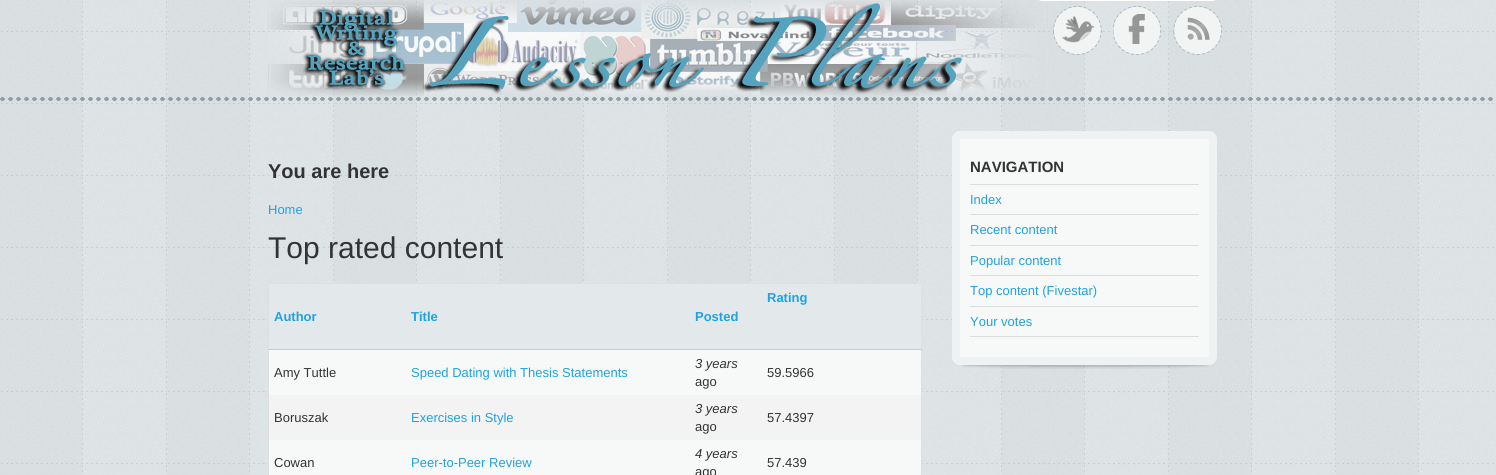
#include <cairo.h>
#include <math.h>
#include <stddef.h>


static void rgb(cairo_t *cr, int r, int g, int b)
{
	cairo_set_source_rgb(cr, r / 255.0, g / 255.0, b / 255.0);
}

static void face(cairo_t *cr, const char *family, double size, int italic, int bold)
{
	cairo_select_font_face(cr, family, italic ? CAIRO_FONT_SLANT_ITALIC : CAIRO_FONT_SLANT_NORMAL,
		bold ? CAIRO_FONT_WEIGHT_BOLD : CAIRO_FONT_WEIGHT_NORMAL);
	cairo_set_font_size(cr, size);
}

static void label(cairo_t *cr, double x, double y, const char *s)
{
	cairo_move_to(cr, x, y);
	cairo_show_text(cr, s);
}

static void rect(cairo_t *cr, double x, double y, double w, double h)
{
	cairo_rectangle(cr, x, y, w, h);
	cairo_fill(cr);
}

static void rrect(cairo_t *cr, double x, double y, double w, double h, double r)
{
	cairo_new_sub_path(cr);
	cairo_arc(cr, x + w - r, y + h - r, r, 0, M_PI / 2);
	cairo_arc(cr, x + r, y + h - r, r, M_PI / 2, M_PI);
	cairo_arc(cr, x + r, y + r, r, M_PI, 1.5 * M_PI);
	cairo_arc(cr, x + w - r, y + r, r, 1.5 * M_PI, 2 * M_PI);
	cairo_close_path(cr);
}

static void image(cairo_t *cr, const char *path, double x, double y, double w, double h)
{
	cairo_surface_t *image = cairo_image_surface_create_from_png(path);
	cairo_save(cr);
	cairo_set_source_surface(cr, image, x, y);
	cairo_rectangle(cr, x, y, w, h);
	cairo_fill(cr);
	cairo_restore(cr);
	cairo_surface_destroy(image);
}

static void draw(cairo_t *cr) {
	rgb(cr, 255, 255, 255);
	cairo_paint(cr);
	image(cr, "image0.png", 0, 0, 1496, 475);
	image(cr, "image1.png", 0, 97, 1493, 4);
	image(cr, "image2.png", 268, 0, 780, 96);
	rrect(cr, 1036.5, -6.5, 181, 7, 5.5);
	rgb(cr, 255, 255, 255);
	cairo_set_line_width(cr, 1);
	cairo_stroke(cr);
	image(cr, "image3.png", 1053, 6, 49, 49);
	image(cr, "image4.png", 1113, 6, 49, 49);
	image(cr, "image5.png", 1173, 6, 49, 49);
	face(cr, "Liberation Sans", 20, 0, 1);
	rgb(cr, 51, 51, 51);
	label(cr, 268, 178, "You are here");
	face(cr, "Liberation Sans", 13, 0, 0);
	rgb(cr, 31, 162, 225);
	label(cr, 268, 214, "Home");
	face(cr, "Liberation Sans", 30, 0, 0);
	rgb(cr, 51, 51, 51);
	label(cr, 268, 258, "Top rated content");
	rgb(cr, 222, 223, 225);
	rect(cr, 268, 283, 654, 1);
	rect(cr, 921, 283, 1, 192);
	rect(cr, 268, 283, 1, 192);
	rgb(cr, 204, 204, 204);
	rect(cr, 268, 349, 654, 1);
	rgb(cr, 227, 232, 234);
	rect(cr, 269, 284, 652, 65);
	face(cr, "Liberation Sans", 13, 0, 1);
	rgb(cr, 31, 162, 225);
	label(cr, 767, 302, "Rating");
	label(cr, 274, 321, "Author");
	label(cr, 411, 321, "Title");
	label(cr, 695, 321, "Posted");
	rgb(cr, 247, 249, 249);
	rect(cr, 269, 350, 652, 45);
	face(cr, "Liberation Sans", 13, 0, 0);
	rgb(cr, 51, 51, 51);
	label(cr, 274, 377, "Amy Tuttle");
	rgb(cr, 31, 162, 225);
	label(cr, 411, 377, "Speed Dating with Thesis Statements");
	face(cr, "Liberation Sans", 13, 1, 0);
	rgb(cr, 51, 51, 51);
	label(cr, 695, 368, "3 years");
	face(cr, "Liberation Sans", 13, 0, 0);
	label(cr, 695, 386, "ago");
	label(cr, 767, 377, "59.5966");
	rgb(cr, 243, 243, 243);
	rect(cr, 269, 395, 652, 45);
	rgb(cr, 51, 51, 51);
	label(cr, 274, 422, "Boruszak");
	rgb(cr, 31, 162, 225);
	label(cr, 411, 422, "Exercises in Style");
	face(cr, "Liberation Sans", 13, 1, 0);
	rgb(cr, 51, 51, 51);
	label(cr, 695, 413, "3 years");
	face(cr, "Liberation Sans", 13, 0, 0);
	label(cr, 695, 431, "ago");
	label(cr, 767, 422, "57.4397");
	rgb(cr, 247, 249, 249);
	rect(cr, 269, 440, 652, 35);
	rgb(cr, 51, 51, 51);
	label(cr, 274, 467, "Cowan");
	rgb(cr, 31, 162, 225);
	label(cr, 411, 467, "Peer-to-Peer Review");
	face(cr, "Liberation Sans", 13, 1, 0);
	rgb(cr, 51, 51, 51);
	label(cr, 695, 458, "4 years");
	face(cr, "Liberation Sans", 13, 0, 0);
	label(cr, 695, 476, "ago");
	label(cr, 767, 467, "57.439");
	image(cr, "image6.png", 961, 365, 249, 4);
	rgb(cr, 247, 249, 249);
	rrect(cr, 956, 135, 257, 226, 4);
	cairo_fill_preserve(cr);
	rgb(cr, 238, 242, 242);
	cairo_set_line_width(cr, 8);
	cairo_stroke(cr);
	rgb(cr, 221, 221, 221);
	rect(cr, 970, 184, 229, 1);
	face(cr, "Liberation Sans", 15, 0, 1);
	rgb(cr, 51, 51, 51);
	label(cr, 970, 172, "NAVIGATION");
	rgb(cr, 221, 221, 221);
	rect(cr, 970, 214, 229, 1);
	face(cr, "Liberation Sans", 13, 0, 0);
	rgb(cr, 31, 162, 225);
	label(cr, 970, 204, "Index");
	rgb(cr, 221, 221, 221);
	rect(cr, 970, 245, 229, 1);
	rgb(cr, 31, 162, 225);
	label(cr, 970, 234, "Recent content");
	rgb(cr, 221, 221, 221);
	rect(cr, 970, 275, 229, 1);
	rgb(cr, 31, 162, 225);
	label(cr, 970, 265, "Popular content");
	rgb(cr, 221, 221, 221);
	rect(cr, 970, 306, 229, 1);
	rgb(cr, 31, 162, 225);
	label(cr, 970, 295, "Top content (Fivestar)");
	rgb(cr, 221, 221, 221);
	rect(cr, 970, 336, 229, 1);
	rgb(cr, 31, 162, 225);
	label(cr, 970, 326, "Your votes");
}

int main(void) {
	cairo_surface_t *surface = cairo_image_surface_create(CAIRO_FORMAT_RGB24, 1496, 475);
	cairo_t *cr = cairo_create(surface);
	cairo_font_options_t *options = cairo_font_options_create();
	cairo_font_options_set_hint_metrics(options, CAIRO_HINT_METRICS_OFF);
	cairo_font_options_set_hint_style(options, CAIRO_HINT_STYLE_NONE);
	cairo_set_font_options(cr, options);
	cairo_set_miter_limit(cr, 4);
	draw(cr);
	cairo_surface_write_to_png(surface, "render.png");
	cairo_font_options_destroy(options);
	cairo_destroy(cr);
	cairo_surface_destroy(surface);
	return 0;
}
